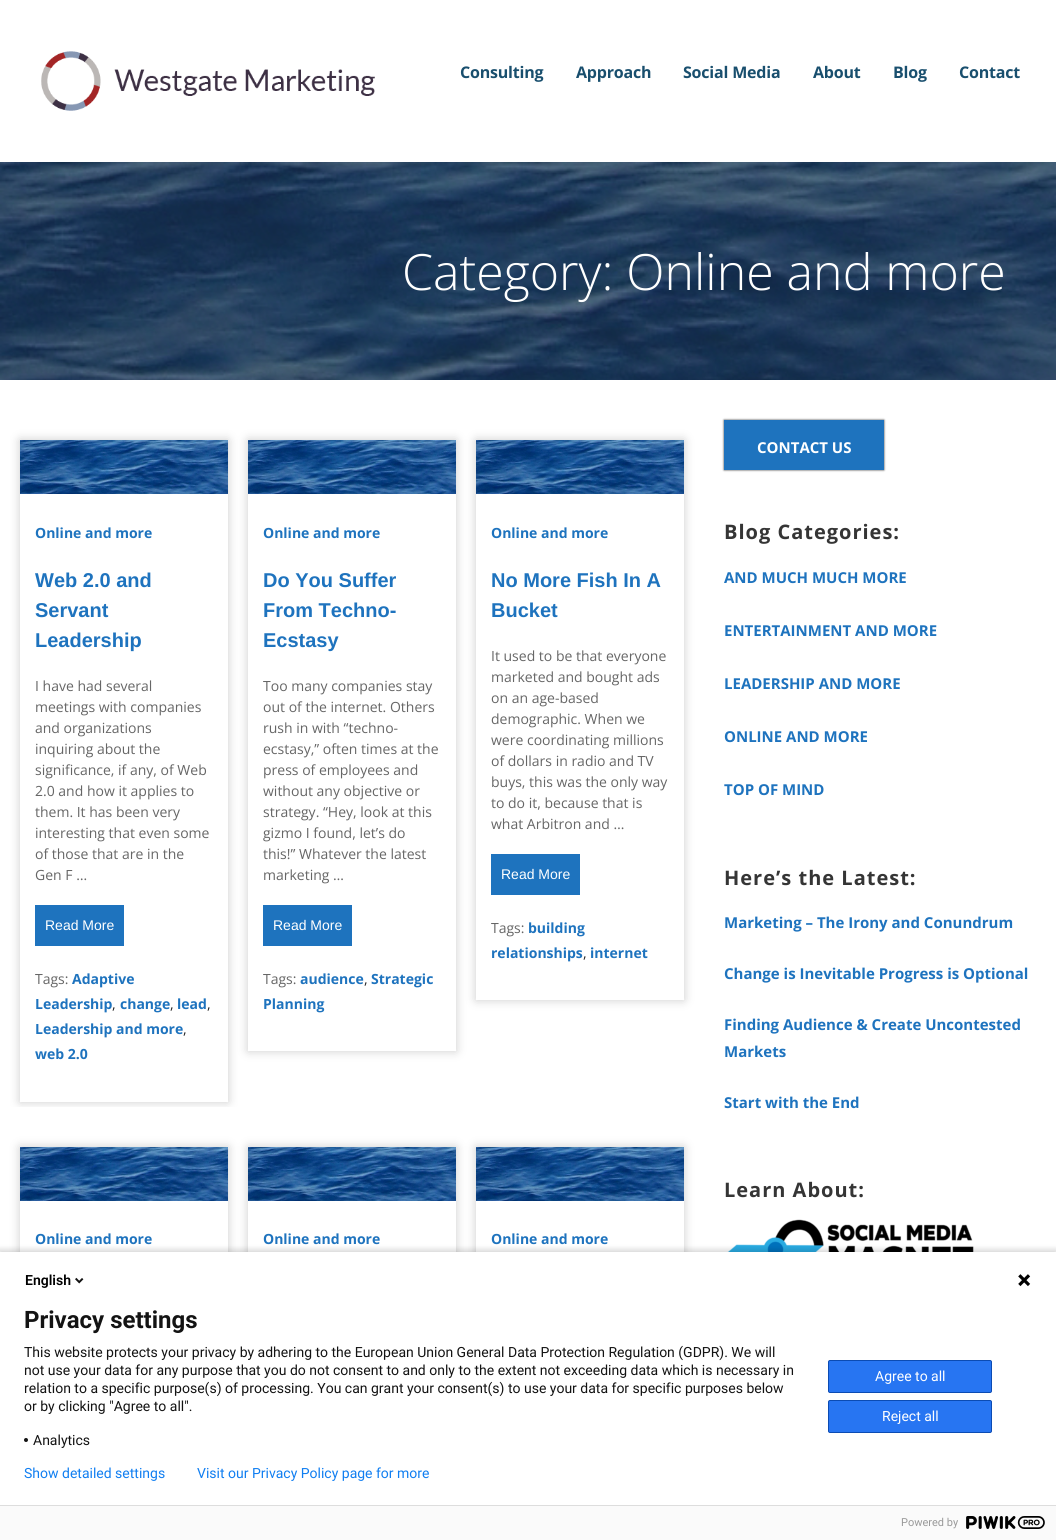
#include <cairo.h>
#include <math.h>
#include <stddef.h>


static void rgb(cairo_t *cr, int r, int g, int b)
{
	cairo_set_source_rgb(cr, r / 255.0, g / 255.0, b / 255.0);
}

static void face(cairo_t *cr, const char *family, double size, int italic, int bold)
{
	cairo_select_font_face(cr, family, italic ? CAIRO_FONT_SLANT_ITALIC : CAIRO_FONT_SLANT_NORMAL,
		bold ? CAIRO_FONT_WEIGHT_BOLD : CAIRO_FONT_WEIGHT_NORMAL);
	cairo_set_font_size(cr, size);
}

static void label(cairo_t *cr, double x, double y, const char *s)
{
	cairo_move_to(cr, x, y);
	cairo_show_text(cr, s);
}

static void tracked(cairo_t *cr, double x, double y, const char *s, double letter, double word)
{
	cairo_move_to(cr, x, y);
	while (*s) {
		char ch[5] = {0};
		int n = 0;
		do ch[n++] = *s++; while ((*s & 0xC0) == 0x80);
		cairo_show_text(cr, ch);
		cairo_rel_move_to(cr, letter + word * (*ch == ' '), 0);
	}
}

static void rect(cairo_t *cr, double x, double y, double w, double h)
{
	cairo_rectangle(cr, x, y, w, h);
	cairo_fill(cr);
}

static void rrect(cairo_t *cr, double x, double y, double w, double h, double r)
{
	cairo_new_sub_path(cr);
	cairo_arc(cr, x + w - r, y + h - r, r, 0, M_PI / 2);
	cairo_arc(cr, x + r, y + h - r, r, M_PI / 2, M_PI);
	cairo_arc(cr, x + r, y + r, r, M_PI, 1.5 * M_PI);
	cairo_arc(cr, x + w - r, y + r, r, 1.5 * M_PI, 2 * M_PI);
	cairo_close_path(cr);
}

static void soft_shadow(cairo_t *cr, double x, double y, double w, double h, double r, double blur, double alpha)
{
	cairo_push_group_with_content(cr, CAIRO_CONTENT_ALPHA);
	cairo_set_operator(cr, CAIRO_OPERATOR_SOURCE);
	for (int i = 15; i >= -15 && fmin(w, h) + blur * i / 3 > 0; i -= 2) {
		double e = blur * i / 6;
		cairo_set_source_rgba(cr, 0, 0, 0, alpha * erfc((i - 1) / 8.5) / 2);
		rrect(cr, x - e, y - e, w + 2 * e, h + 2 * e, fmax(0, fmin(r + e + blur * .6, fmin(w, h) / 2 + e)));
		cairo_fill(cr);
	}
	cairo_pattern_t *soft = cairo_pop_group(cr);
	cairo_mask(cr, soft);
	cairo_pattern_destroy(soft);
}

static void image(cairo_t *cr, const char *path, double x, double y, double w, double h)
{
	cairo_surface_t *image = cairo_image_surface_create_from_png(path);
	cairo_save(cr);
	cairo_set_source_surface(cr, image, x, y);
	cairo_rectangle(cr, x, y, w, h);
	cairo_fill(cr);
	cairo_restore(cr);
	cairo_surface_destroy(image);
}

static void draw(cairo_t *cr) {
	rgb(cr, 255, 255, 255);
	cairo_paint(cr);
	image(cr, "image0.png", 41, 51, 334, 60);
	face(cr, "Open Sans", 16, 0, 1);
	rgb(cr, 25, 79, 110);
	tracked(cr, 460, 78, "Consulting", -0.2, 0);
	tracked(cr, 576, 78, "Approach", -0.2, 0);
	tracked(cr, 683, 78, "Social Media", -0.2, 0);
	tracked(cr, 813, 78, "About", -0.2, 0);
	tracked(cr, 893, 78, "Blog", -0.2, 0);
	tracked(cr, 959, 78, "Contact", -0.2, 0);
	image(cr, "image1.png", 0, 162, 1056, 218);
	face(cr, "Open Sans Light", 50, 0, 0);
	rgb(cr, 255, 255, 255);
	label(cr, 402, 290, "Category: Online and more");
	cairo_save(cr);
	cairo_rectangle(cr, 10, 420, 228, 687);
	cairo_clip(cr);
	cairo_set_fill_rule(cr, CAIRO_FILL_RULE_EVEN_ODD);
	cairo_new_path(cr);
	cairo_move_to(cr, 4, 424);
	cairo_line_to(cr, 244, 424);
	cairo_line_to(cr, 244, 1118);
	cairo_line_to(cr, 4, 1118);
	cairo_close_path(cr);
	cairo_move_to(cr, 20, 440);
	cairo_line_to(cr, 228, 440);
	cairo_line_to(cr, 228, 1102);
	cairo_line_to(cr, 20, 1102);
	cairo_close_path(cr);
	cairo_clip(cr);
	rgb(cr, 204, 204, 204);
	soft_shadow(cr, 20, 440, 208, 662, 0, 5, 1);
	cairo_restore(cr);
	image(cr, "image2.png", 20, 440, 208, 54);
	face(cr, "Open Sans", 14, 0, 1);
	rgb(cr, 30, 115, 190);
	label(cr, 35, 538, "Online and more");
	face(cr, "Liberation Sans", 20, 0, 1);
	label(cr, 35, 587, "Web 2.0 and");
	label(cr, 35, 617, "Servant");
	label(cr, 35, 647, "Leadership");
	face(cr, "Open Sans", 14, 0, 0);
	rgb(cr, 102, 102, 102);
	label(cr, 35, 691, "I have had several");
	label(cr, 35, 712, "meetings with companies");
	label(cr, 35, 733, "and organizations");
	label(cr, 35, 754, "inquiring about the");
	label(cr, 35, 775, "significance, if any, of Web");
	label(cr, 35, 796, "2.0 and how it applies to");
	label(cr, 35, 817, "them. It has been very");
	label(cr, 35, 838, "interesting that even some");
	label(cr, 35, 859, "of those that are in the");
	label(cr, 35, 880, "Gen F …");
	rgb(cr, 30, 115, 190);
	rect(cr, 35, 905, 89, 41);
	face(cr, "Liberation Sans", 14, 0, 0);
	rgb(cr, 255, 255, 255);
	label(cr, 45, 930, "Read More");
	face(cr, "Open Sans", 14, 0, 0);
	rgb(cr, 102, 102, 102);
	label(cr, 35, 984, "Tags:");
	face(cr, "Open Sans", 14, 0, 1);
	rgb(cr, 30, 115, 190);
	label(cr, 72, 984, "Adaptive");
	label(cr, 35, 1009, "Leadership");
	face(cr, "Open Sans", 14, 0, 0);
	rgb(cr, 37, 37, 37);
	label(cr, 112, 1009, ",");
	face(cr, "Open Sans", 14, 0, 1);
	rgb(cr, 30, 115, 190);
	label(cr, 120, 1009, "change");
	face(cr, "Open Sans", 14, 0, 0);
	rgb(cr, 37, 37, 37);
	label(cr, 170, 1009, ",");
	face(cr, "Open Sans", 14, 0, 1);
	rgb(cr, 30, 115, 190);
	label(cr, 177, 1009, "lead");
	face(cr, "Open Sans", 14, 0, 0);
	rgb(cr, 37, 37, 37);
	label(cr, 207, 1009, ",");
	face(cr, "Open Sans", 14, 0, 1);
	rgb(cr, 30, 115, 190);
	label(cr, 35, 1034, "Leadership and more");
	face(cr, "Open Sans", 14, 0, 0);
	rgb(cr, 37, 37, 37);
	label(cr, 183, 1034, ",");
	face(cr, "Open Sans", 14, 0, 1);
	rgb(cr, 30, 115, 190);
	label(cr, 35, 1059, "web 2.0");
	cairo_save(cr);
	cairo_set_fill_rule(cr, CAIRO_FILL_RULE_EVEN_ODD);
	cairo_new_path(cr);
	cairo_move_to(cr, 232, 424);
	cairo_line_to(cr, 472, 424);
	cairo_line_to(cr, 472, 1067);
	cairo_line_to(cr, 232, 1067);
	cairo_close_path(cr);
	cairo_move_to(cr, 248, 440);
	cairo_line_to(cr, 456, 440);
	cairo_line_to(cr, 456, 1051);
	cairo_line_to(cr, 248, 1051);
	cairo_close_path(cr);
	cairo_clip(cr);
	rgb(cr, 204, 204, 204);
	soft_shadow(cr, 248, 440, 208, 611, 0, 5, 1);
	cairo_restore(cr);
	image(cr, "image3.png", 248, 440, 208, 54);
	label(cr, 263, 538, "Online and more");
	face(cr, "Liberation Sans", 20, 0, 1);
	label(cr, 263, 587, "Do You Suffer");
	label(cr, 263, 617, "From Techno-");
	label(cr, 263, 647, "Ecstasy");
	face(cr, "Open Sans", 14, 0, 0);
	rgb(cr, 102, 102, 102);
	label(cr, 263, 691, "Too many companies stay");
	label(cr, 263, 712, "out of the internet. Others");
	label(cr, 263, 733, "rush in with “techno-");
	label(cr, 263, 754, "ecstasy,” often times at the");
	label(cr, 263, 775, "press of employees and");
	label(cr, 263, 796, "without any objective or");
	label(cr, 263, 817, "strategy. “Hey, look at this");
	label(cr, 263, 838, "gizmo I found, let’s do");
	label(cr, 263, 859, "this!” Whatever the latest");
	label(cr, 263, 880, "marketing …");
	rgb(cr, 30, 115, 190);
	rect(cr, 263, 905, 89, 41);
	face(cr, "Liberation Sans", 14, 0, 0);
	rgb(cr, 255, 255, 255);
	label(cr, 273, 930, "Read More");
	face(cr, "Open Sans", 14, 0, 0);
	rgb(cr, 102, 102, 102);
	label(cr, 263, 984, "Tags:");
	face(cr, "Open Sans", 14, 0, 1);
	rgb(cr, 30, 115, 190);
	label(cr, 300, 984, "audience");
	face(cr, "Open Sans", 14, 0, 0);
	rgb(cr, 37, 37, 37);
	label(cr, 364, 984, ",");
	face(cr, "Open Sans", 14, 0, 1);
	rgb(cr, 30, 115, 190);
	label(cr, 371, 984, "Strategic");
	label(cr, 263, 1009, "Planning");
	cairo_save(cr);
	cairo_set_fill_rule(cr, CAIRO_FILL_RULE_EVEN_ODD);
	cairo_new_path(cr);
	cairo_move_to(cr, 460, 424);
	cairo_line_to(cr, 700, 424);
	cairo_line_to(cr, 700, 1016);
	cairo_line_to(cr, 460, 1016);
	cairo_close_path(cr);
	cairo_move_to(cr, 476, 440);
	cairo_line_to(cr, 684, 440);
	cairo_line_to(cr, 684, 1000);
	cairo_line_to(cr, 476, 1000);
	cairo_close_path(cr);
	cairo_clip(cr);
	rgb(cr, 204, 204, 204);
	soft_shadow(cr, 476, 440, 208, 560, 0, 5, 1);
	cairo_restore(cr);
	image(cr, "image4.png", 476, 440, 208, 54);
	label(cr, 491, 538, "Online and more");
	face(cr, "Liberation Sans", 20, 0, 1);
	label(cr, 491, 587, "No More Fish In A");
	label(cr, 491, 617, "Bucket");
	face(cr, "Open Sans", 14, 0, 0);
	rgb(cr, 102, 102, 102);
	label(cr, 491, 661, "It used to be that everyone");
	label(cr, 491, 682, "marketed and bought ads");
	label(cr, 491, 703, "on an age-based");
	label(cr, 491, 724, "demographic. When we");
	label(cr, 491, 745, "were coordinating millions");
	label(cr, 491, 766, "of dollars in radio and TV");
	label(cr, 491, 787, "buys, this was the only way");
	label(cr, 491, 808, "to do it, because that is");
	label(cr, 491, 829, "what Arbitron and …");
	rgb(cr, 30, 115, 190);
	rect(cr, 491, 854, 89, 41);
	face(cr, "Liberation Sans", 14, 0, 0);
	rgb(cr, 255, 255, 255);
	label(cr, 501, 879, "Read More");
	face(cr, "Open Sans", 14, 0, 0);
	rgb(cr, 102, 102, 102);
	label(cr, 491, 933, "Tags:");
	face(cr, "Open Sans", 14, 0, 1);
	rgb(cr, 30, 115, 190);
	label(cr, 528, 933, "building");
	label(cr, 491, 958, "relationships");
	face(cr, "Open Sans", 14, 0, 0);
	rgb(cr, 37, 37, 37);
	label(cr, 583, 958, ",");
	face(cr, "Open Sans", 14, 0, 1);
	rgb(cr, 30, 115, 190);
	label(cr, 590, 958, "internet");
	cairo_save(cr);
	cairo_set_fill_rule(cr, CAIRO_FILL_RULE_EVEN_ODD);
	cairo_new_path(cr);
	cairo_move_to(cr, 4, 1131);
	cairo_line_to(cr, 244, 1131);
	cairo_line_to(cr, 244, 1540);
	cairo_line_to(cr, 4, 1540);
	cairo_close_path(cr);
	cairo_move_to(cr, 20, 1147);
	cairo_line_to(cr, 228, 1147);
	cairo_line_to(cr, 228, 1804);
	cairo_line_to(cr, 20, 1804);
	cairo_close_path(cr);
	cairo_clip(cr);
	rgb(cr, 204, 204, 204);
	soft_shadow(cr, 20, 1147, 208, 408, 0, 5, 1);
	cairo_restore(cr);
	image(cr, "image2.png", 20, 1147, 208, 54);
	label(cr, 35, 1244, "Online and more");
	cairo_save(cr);
	cairo_set_fill_rule(cr, CAIRO_FILL_RULE_EVEN_ODD);
	cairo_new_path(cr);
	cairo_move_to(cr, 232, 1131);
	cairo_line_to(cr, 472, 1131);
	cairo_line_to(cr, 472, 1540);
	cairo_line_to(cr, 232, 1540);
	cairo_close_path(cr);
	cairo_move_to(cr, 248, 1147);
	cairo_line_to(cr, 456, 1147);
	cairo_line_to(cr, 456, 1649);
	cairo_line_to(cr, 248, 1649);
	cairo_close_path(cr);
	cairo_clip(cr);
	rgb(cr, 204, 204, 204);
	soft_shadow(cr, 248, 1147, 208, 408, 0, 5, 1);
	cairo_restore(cr);
	image(cr, "image3.png", 248, 1147, 208, 54);
	label(cr, 263, 1244, "Online and more");
	cairo_save(cr);
	cairo_set_fill_rule(cr, CAIRO_FILL_RULE_EVEN_ODD);
	cairo_new_path(cr);
	cairo_move_to(cr, 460, 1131);
	cairo_line_to(cr, 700, 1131);
	cairo_line_to(cr, 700, 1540);
	cairo_line_to(cr, 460, 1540);
	cairo_close_path(cr);
	cairo_move_to(cr, 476, 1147);
	cairo_line_to(cr, 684, 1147);
	cairo_line_to(cr, 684, 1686);
	cairo_line_to(cr, 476, 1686);
	cairo_close_path(cr);
	cairo_clip(cr);
	rgb(cr, 204, 204, 204);
	soft_shadow(cr, 476, 1147, 208, 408, 0, 5, 1);
	cairo_restore(cr);
	image(cr, "image4.png", 476, 1147, 208, 54);
	label(cr, 491, 1244, "Online and more");
	rgb(cr, 51, 51, 51);
	soft_shadow(cr, 724, 420, 160, 50, 0, 1, 1);
	rgb(cr, 30, 115, 190);
	rect(cr, 724, 420, 160, 50);
	face(cr, "Open Sans", 15, 0, 1);
	rgb(cr, 255, 255, 255);
	label(cr, 757, 453, "CONTACT US");
	face(cr, "Open Sans", 20, 0, 1);
	rgb(cr, 53, 53, 53);
	tracked(cr, 724, 539, "Blog Categories:", 1, 0);
	face(cr, "Open Sans", 15, 0, 1);
	rgb(cr, 30, 115, 190);
	label(cr, 724, 583, "AND MUCH MUCH MORE");
	label(cr, 724, 636, "ENTERTAINMENT AND MORE");
	label(cr, 724, 689, "LEADERSHIP AND MORE");
	label(cr, 724, 742, "ONLINE AND MORE");
	label(cr, 724, 795, "TOP OF MIND");
	face(cr, "Open Sans", 20, 0, 1);
	rgb(cr, 53, 53, 53);
	tracked(cr, 724, 885, "Here’s the Latest:", 1, 0);
	face(cr, "Open Sans", 15, 0, 1);
	rgb(cr, 30, 115, 190);
	label(cr, 724, 928, "Marketing – The Irony and Conundrum");
	label(cr, 724, 979, "Change is Inevitable Progress is Optional");
	label(cr, 724, 1030, "Finding Audience & Create Uncontested");
	label(cr, 724, 1057, "Markets");
	label(cr, 724, 1108, "Start with the End");
	face(cr, "Open Sans", 20, 0, 1);
	rgb(cr, 53, 53, 53);
	tracked(cr, 724, 1197, "Learn About:", 1, 0);
	image(cr, "image5.png", 727, 1219, 247, 33);
	rgb(cr, 0, 0, 0);
	soft_shadow(cr, -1, 1249, 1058, 290, 0, 2.5, 0.14);
	rgb(cr, 255, 255, 255);
	rect(cr, 0, 1252, 1056, 253);
	face(cr, "Roboto SemiBold", 14, 0, 0);
	rgb(cr, 0, 0, 0);
	label(cr, 25, 1285, "English");
	image(cr, "image6.png", 75, 1277, 9, 7);
	image(cr, "image7.png", 1018, 1274, 13, 13);
	face(cr, "Roboto", 24, 0, 1);
	rgb(cr, 19, 19, 19);
	label(cr, 24, 1328, "Privacy settings");
	face(cr, "Roboto", 14, 0, 0);
	label(cr, 24, 1357, "This website protects your privacy by adhering to the European Union General Data Protection Regulation (GDPR). We will");
	label(cr, 24, 1375, "not use your data for any purpose that you do not consent to and only to the extent not exceeding data which is necessary in");
	label(cr, 24, 1393, "relation to a specific purpose(s) of processing. You can grant your consent(s) to use your data for specific purposes below");
	label(cr, 24, 1411, "or by clicking \"Agree to all\".");
	cairo_new_path(cr);
	cairo_arc(cr, 26, 1440, 2, 0, 2 * M_PI);
	cairo_fill(cr);
	label(cr, 33, 1445, "Analytics");
	rgb(cr, 39, 117, 242);
	rrect(cr, 828.5, 1360.5, 163, 32, 1.5);
	cairo_fill_preserve(cr);
	rgb(cr, 11, 75, 179);
	cairo_set_line_width(cr, 1);
	cairo_stroke(cr);
	rgb(cr, 255, 255, 255);
	label(cr, 875, 1381, "Agree to all");
	rgb(cr, 39, 117, 242);
	rrect(cr, 828.5, 1400.5, 163, 32, 1.5);
	cairo_fill_preserve(cr);
	rgb(cr, 11, 75, 179);
	cairo_stroke(cr);
	rgb(cr, 255, 255, 255);
	label(cr, 882, 1421, "Reject all");
	rgb(cr, 16, 126, 241);
	label(cr, 24, 1478, "Show detailed settings");
	label(cr, 197, 1478, "Visit our Privacy Policy page for more");
	rgb(cr, 250, 250, 250);
	rect(cr, 0, 1506, 1056, 34);
	rgb(cr, 221, 221, 221);
	rect(cr, 0, 1505, 1056, 1);
	face(cr, "Roboto", 11, 0, 0);
	rgb(cr, 153, 153, 153);
	label(cr, 901, 1526, "Powered by");
	image(cr, "image8.png", 966, 1516, 79, 13);
}

int main(void) {
	cairo_surface_t *surface = cairo_image_surface_create(CAIRO_FORMAT_RGB24, 1056, 1540);
	cairo_t *cr = cairo_create(surface);
	cairo_font_options_t *options = cairo_font_options_create();
	cairo_font_options_set_hint_metrics(options, CAIRO_HINT_METRICS_OFF);
	cairo_font_options_set_hint_style(options, CAIRO_HINT_STYLE_NONE);
	cairo_set_font_options(cr, options);
	cairo_set_miter_limit(cr, 4);
	draw(cr);
	cairo_surface_write_to_png(surface, "render.png");
	cairo_font_options_destroy(options);
	cairo_destroy(cr);
	cairo_surface_destroy(surface);
	return 0;
}
